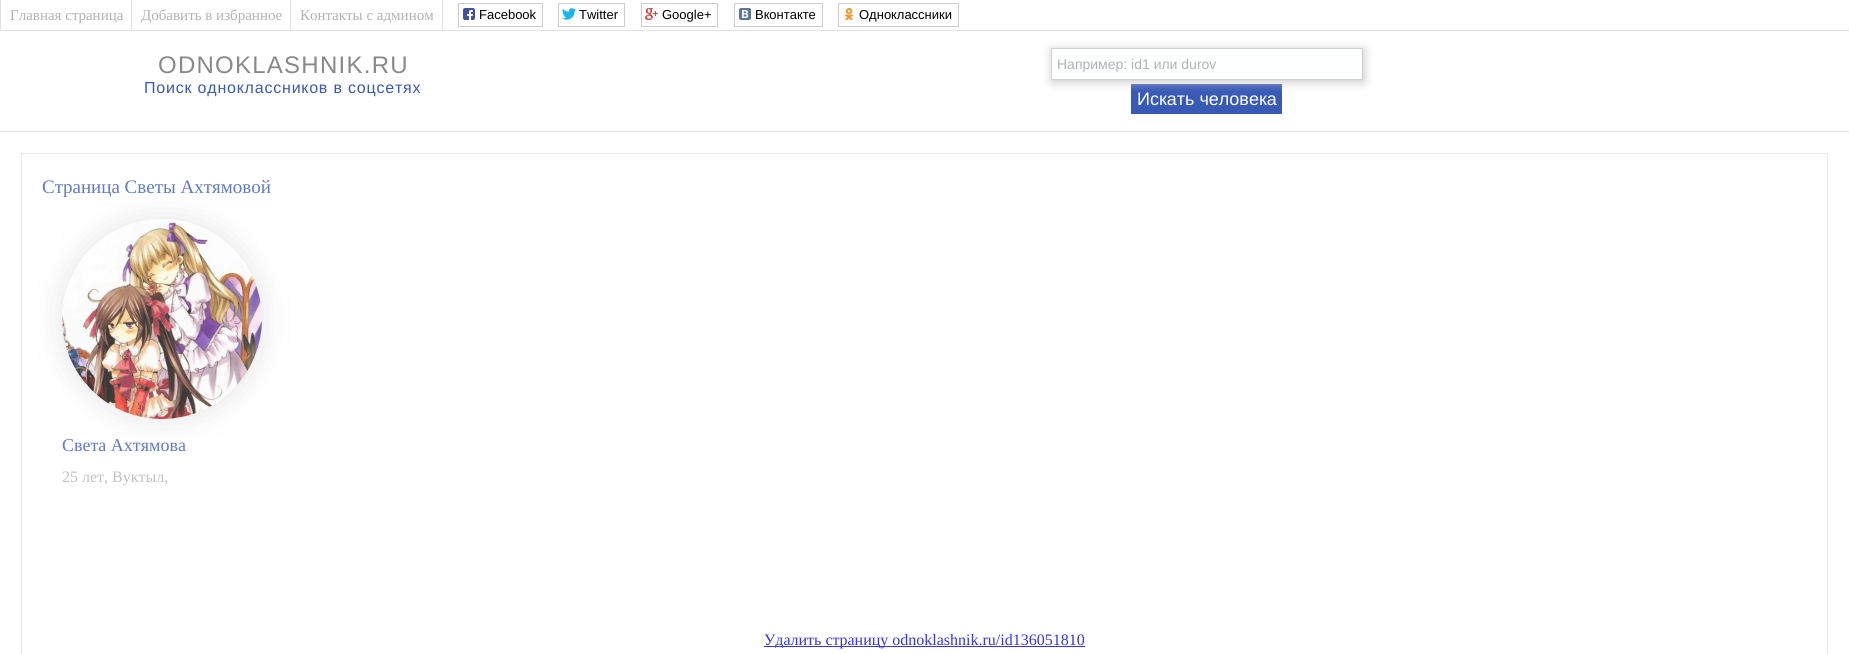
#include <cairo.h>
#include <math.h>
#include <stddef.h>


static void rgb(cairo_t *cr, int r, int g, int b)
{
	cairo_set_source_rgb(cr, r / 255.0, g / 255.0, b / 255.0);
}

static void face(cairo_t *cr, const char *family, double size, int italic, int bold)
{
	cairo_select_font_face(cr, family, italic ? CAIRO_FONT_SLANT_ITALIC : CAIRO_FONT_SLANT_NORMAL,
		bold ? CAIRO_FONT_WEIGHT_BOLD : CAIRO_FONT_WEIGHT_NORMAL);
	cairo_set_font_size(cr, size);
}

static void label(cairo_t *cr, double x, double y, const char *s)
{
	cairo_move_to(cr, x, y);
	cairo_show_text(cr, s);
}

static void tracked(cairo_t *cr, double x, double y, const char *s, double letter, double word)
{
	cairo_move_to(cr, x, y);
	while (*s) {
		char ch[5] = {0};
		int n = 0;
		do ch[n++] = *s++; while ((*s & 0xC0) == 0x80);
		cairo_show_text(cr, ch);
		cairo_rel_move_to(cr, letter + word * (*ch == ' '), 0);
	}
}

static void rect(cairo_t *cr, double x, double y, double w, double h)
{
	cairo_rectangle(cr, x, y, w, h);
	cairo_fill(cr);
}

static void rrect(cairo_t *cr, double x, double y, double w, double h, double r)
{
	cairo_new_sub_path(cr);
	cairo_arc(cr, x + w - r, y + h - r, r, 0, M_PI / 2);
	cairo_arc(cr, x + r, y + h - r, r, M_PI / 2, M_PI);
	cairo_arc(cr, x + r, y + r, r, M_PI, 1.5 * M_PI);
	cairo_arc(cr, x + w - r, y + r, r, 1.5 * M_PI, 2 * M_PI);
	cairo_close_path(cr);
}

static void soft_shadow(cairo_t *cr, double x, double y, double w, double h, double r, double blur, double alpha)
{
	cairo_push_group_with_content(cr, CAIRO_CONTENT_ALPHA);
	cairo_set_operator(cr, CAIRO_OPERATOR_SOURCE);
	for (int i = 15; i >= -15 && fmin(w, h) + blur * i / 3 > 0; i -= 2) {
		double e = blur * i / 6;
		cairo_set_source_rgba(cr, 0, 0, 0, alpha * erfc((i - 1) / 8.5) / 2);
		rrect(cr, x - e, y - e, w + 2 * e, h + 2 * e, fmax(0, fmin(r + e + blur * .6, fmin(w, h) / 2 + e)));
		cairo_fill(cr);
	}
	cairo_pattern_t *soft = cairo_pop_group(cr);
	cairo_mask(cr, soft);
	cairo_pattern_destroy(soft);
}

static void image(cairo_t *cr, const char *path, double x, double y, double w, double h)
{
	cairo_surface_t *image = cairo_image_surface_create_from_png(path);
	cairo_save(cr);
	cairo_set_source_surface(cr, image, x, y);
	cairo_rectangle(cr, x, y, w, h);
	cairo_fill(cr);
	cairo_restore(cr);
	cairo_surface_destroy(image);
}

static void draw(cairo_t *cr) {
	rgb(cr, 255, 255, 255);
	cairo_paint(cr);
	rgb(cr, 227, 226, 224);
	rect(cr, 0, 30, 1849, 1);
	rect(cr, 0, 0, 1, 30);
	face(cr, "Liberation Serif", 15, 0, 0);
	rgb(cr, 179, 178, 178);
	label(cr, 10, 20, "Главная страница");
	rgb(cr, 227, 226, 224);
	rect(cr, 131, 0, 1, 30);
	rgb(cr, 179, 178, 178);
	label(cr, 141, 20, "Добавить в избранное");
	rgb(cr, 227, 226, 224);
	rect(cr, 290, 0, 1, 30);
	rgb(cr, 179, 178, 178);
	label(cr, 300, 20, "Контакты с админом");
	rgb(cr, 227, 226, 224);
	rect(cr, 442, 0, 1, 30);
	cairo_rectangle(cr, 458.5, 3.5, 84, 23);
	rgb(cr, 204, 204, 204);
	cairo_set_line_width(cr, 1);
	cairo_stroke(cr);
	image(cr, "image0.png", 463, 8, 12, 12);
	face(cr, "Liberation Sans", 13, 0, 0);
	rgb(cr, 0, 0, 0);
	label(cr, 479, 19, "Facebook");
	cairo_rectangle(cr, 558.5, 3.5, 66, 23);
	rgb(cr, 204, 204, 204);
	cairo_stroke(cr);
	image(cr, "image1.png", 562, 8, 14, 12);
	rgb(cr, 0, 0, 0);
	label(cr, 579, 19, "Twitter");
	cairo_rectangle(cr, 641.5, 3.5, 76, 23);
	rgb(cr, 204, 204, 204);
	cairo_stroke(cr);
	image(cr, "image2.png", 645, 8, 13, 12);
	rgb(cr, 0, 0, 0);
	label(cr, 662, 19, "Google+");
	cairo_rectangle(cr, 734.5, 3.5, 88, 23);
	rgb(cr, 204, 204, 204);
	cairo_stroke(cr);
	image(cr, "image3.png", 739, 8, 12, 12);
	rgb(cr, 0, 0, 0);
	label(cr, 755, 19, "Вконтакте");
	cairo_rectangle(cr, 838.5, 3.5, 120, 23);
	rgb(cr, 204, 204, 204);
	cairo_stroke(cr);
	image(cr, "image4.png", 845, 8, 8, 12);
	rgb(cr, 0, 0, 0);
	label(cr, 859, 19, "Одноклассники");
	rgb(cr, 227, 226, 224);
	rect(cr, 0, 131, 1849, 1);
	face(cr, "Liberation Sans", 24, 0, 0);
	rgb(cr, 138, 136, 136);
	tracked(cr, 158, 73, "ODNOKLASHNIK.RU", 1.25, 0);
	face(cr, "Liberation Sans", 16, 0, 0);
	rgb(cr, 56, 89, 182);
	tracked(cr, 144, 93, "Поиск одноклассников в соцсетях", 0.8, 0);
	rect(cr, 1131, 84, 151, 30);
	rgb(cr, 203, 201, 201);
	soft_shadow(cr, 1052, 50, 312, 32, 0, 5, 1);
	rgb(cr, 253, 254, 255);
	cairo_rectangle(cr, 1051.5, 48.5, 311, 31);
	cairo_fill_preserve(cr);
	rgb(cr, 208, 208, 207);
	cairo_stroke(cr);
	face(cr, "Liberation Sans", 14, 0, 0);
	rgb(cr, 179, 178, 178);
	label(cr, 1057, 69, "Например: id1 или durov");
	face(cr, "Liberation Sans", 18, 0, 0);
	rgb(cr, 255, 255, 255);
	label(cr, 1137, 105, "Искать человека");
	cairo_rectangle(cr, 21.5, 153.5, 1806, 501);
	rgb(cr, 233, 232, 230);
	cairo_stroke(cr);
	cairo_save(cr);
	cairo_set_fill_rule(cr, CAIRO_FILL_RULE_EVEN_ODD);
	cairo_new_path(cr);
	cairo_move_to(cr, 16, 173);
	cairo_line_to(cr, 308, 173);
	cairo_line_to(cr, 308, 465);
	cairo_line_to(cr, 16, 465);
	cairo_close_path(cr);
	cairo_move_to(cr, 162, 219);
	cairo_curve_to(cr, 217, 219, 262, 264, 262, 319);
	cairo_curve_to(cr, 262, 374, 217, 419, 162, 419);
	cairo_curve_to(cr, 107, 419, 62, 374, 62, 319);
	cairo_curve_to(cr, 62, 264, 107, 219, 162, 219);
	cairo_close_path(cr);
	cairo_clip(cr);
	rgb(cr, 229, 229, 229);
	soft_shadow(cr, 62, 219, 200, 200, 100, 15, 1);
	cairo_restore(cr);
	image(cr, "image5.png", 62, 219, 200, 200);
	face(cr, "Liberation Serif", 19, 0, 0);
	rgb(cr, 96, 122, 197);
	label(cr, 42, 193, "Страница Светы Ахтямовой");
	face(cr, "Liberation Serif", 18, 0, 0);
	label(cr, 62, 451, "Света Ахтямова");
	face(cr, "Liberation Serif", 16, 0, 0);
	rgb(cr, 194, 193, 193);
	label(cr, 62, 482, "25 лет, Вуктыл,");
	rgb(cr, 51, 51, 241);
	rect(cr, 764, 646, 321, 1);
	label(cr, 764, 645, "Удалить страницу odnoklashnik.ru/id136051810");
}

int main(void) {
	cairo_surface_t *surface = cairo_image_surface_create(CAIRO_FORMAT_RGB24, 1849, 654);
	cairo_t *cr = cairo_create(surface);
	cairo_font_options_t *options = cairo_font_options_create();
	cairo_font_options_set_hint_metrics(options, CAIRO_HINT_METRICS_OFF);
	cairo_font_options_set_hint_style(options, CAIRO_HINT_STYLE_NONE);
	cairo_set_font_options(cr, options);
	cairo_set_miter_limit(cr, 4);
	draw(cr);
	cairo_surface_write_to_png(surface, "render.png");
	cairo_font_options_destroy(options);
	cairo_destroy(cr);
	cairo_surface_destroy(surface);
	return 0;
}
